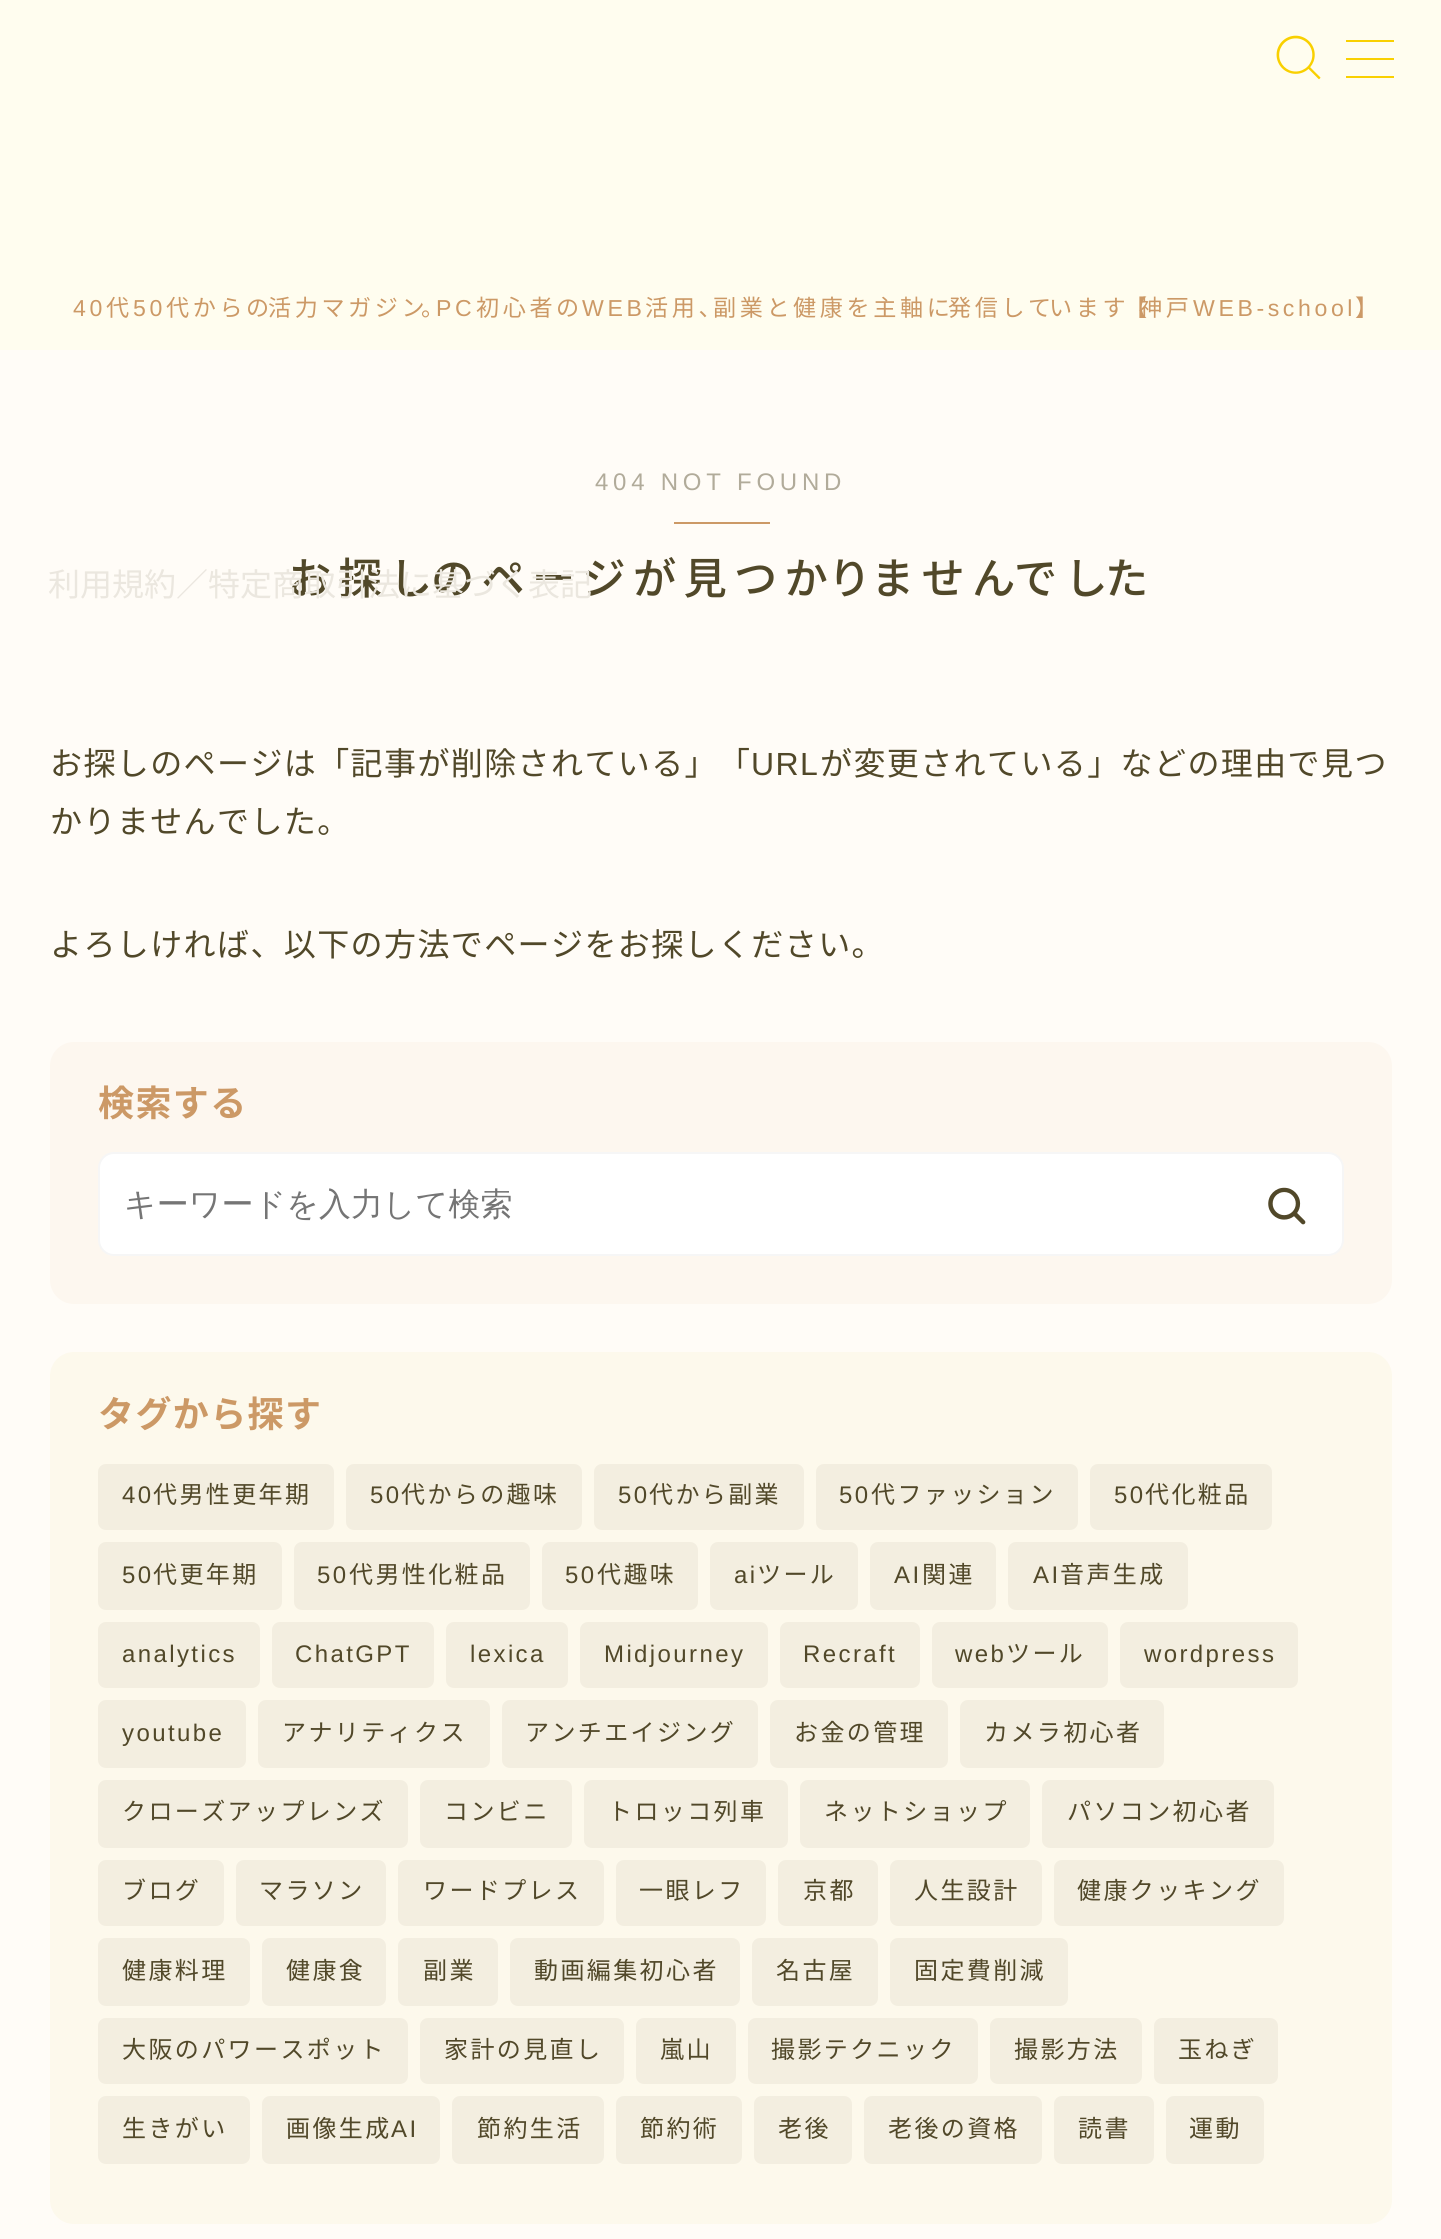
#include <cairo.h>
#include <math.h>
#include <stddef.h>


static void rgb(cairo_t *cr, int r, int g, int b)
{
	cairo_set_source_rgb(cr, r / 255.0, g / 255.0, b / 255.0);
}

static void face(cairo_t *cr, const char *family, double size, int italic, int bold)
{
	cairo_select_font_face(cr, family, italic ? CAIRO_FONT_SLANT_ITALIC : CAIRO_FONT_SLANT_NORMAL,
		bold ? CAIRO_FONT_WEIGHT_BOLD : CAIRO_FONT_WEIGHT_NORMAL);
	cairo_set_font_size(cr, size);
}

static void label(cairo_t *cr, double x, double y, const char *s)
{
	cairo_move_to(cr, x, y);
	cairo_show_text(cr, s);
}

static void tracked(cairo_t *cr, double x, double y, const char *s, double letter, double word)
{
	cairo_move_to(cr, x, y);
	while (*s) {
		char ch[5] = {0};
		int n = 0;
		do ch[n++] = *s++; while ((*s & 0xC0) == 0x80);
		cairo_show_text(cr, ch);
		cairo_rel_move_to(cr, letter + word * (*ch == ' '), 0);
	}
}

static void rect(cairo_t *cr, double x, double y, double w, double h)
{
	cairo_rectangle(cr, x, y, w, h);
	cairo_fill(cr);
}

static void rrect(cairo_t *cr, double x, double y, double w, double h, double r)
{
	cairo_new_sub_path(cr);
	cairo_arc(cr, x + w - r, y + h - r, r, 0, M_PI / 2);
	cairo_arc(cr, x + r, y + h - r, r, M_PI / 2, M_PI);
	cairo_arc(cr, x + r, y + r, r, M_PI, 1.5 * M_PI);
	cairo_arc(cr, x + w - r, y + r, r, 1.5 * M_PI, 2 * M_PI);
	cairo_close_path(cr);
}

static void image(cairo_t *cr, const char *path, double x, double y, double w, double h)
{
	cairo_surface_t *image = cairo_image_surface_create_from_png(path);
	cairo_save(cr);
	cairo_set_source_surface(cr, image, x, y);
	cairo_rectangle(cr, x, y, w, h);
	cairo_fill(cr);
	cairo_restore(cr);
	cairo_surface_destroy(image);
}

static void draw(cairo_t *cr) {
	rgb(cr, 255, 252, 247);
	cairo_paint(cr);
	rgb(cr, 255, 253, 239);
	rect(cr, 0, 0, 1441, 350);
	image(cr, "image0.png", 1276, 35, 45, 45);
	face(cr, "Liberation Sans", 23.1, 0, 0);
	rgb(cr, 204, 153, 102);
	tracked(cr, 73, 316, "40", 3.6, 0);
	face(cr, "Noto Sans CJK JP", 23.1, 0, 0);
	tracked(cr, 106, 316, "代", 3.6, 0);
	face(cr, "Liberation Sans", 23.1, 0, 0);
	tracked(cr, 133, 316, "50", 3.6, 0);
	face(cr, "Noto Sans CJK JP", 23.1, 0, 0);
	tracked(cr, 166, 316, "代からの", 3.6, 0);
	tracked(cr, 268, 316, "活力マガジン", 3.6, 0);
	tracked(cr, 421, 316, "。", 3.6, 0);
	face(cr, "Liberation Sans", 23.1, 0, 0);
	tracked(cr, 436, 316, "PC", 3.6, 0);
	face(cr, "Noto Sans CJK JP", 23.1, 0, 0);
	tracked(cr, 476, 316, "初心者の", 3.6, 0);
	face(cr, "Liberation Sans", 23.1, 0, 0);
	tracked(cr, 582, 316, "WEB", 3.6, 0);
	face(cr, "Noto Sans CJK JP", 23.1, 0, 0);
	tracked(cr, 645, 316, "活用、", 3.6, 0);
	tracked(cr, 713, 316, "副業と健康を主軸に", 3.6, 0);
	tracked(cr, 948, 316, "発信して", 3.6, 0);
	tracked(cr, 1049, 316, "います", 3.6, 0);
	tracked(cr, 1124, 316, "【", 3.6, 0);
	tracked(cr, 1139, 316, "神戸", 3.6, 0);
	face(cr, "Liberation Sans", 23.1, 0, 0);
	tracked(cr, 1193, 316, "WEB-school", 3.6, 0);
	face(cr, "Noto Sans CJK JP", 23.1, 0, 0);
	tracked(cr, 1355, 316, "】", 3.6, 0);
	rgb(cr, 249, 208, 0);
	rect(cr, 1346, 40, 48, 2);
	rect(cr, 1346, 58, 48, 2);
	rect(cr, 1346, 76, 48, 2);
	face(cr, "Noto Sans CJK JP Medium", 43.25, 0, 0);
	rgb(cr, 81, 72, 41);
	tracked(cr, 288, 594, "お探し", 7.25, 0);
	tracked(cr, 431, 594, "のページが見つか", 7.25, 0);
	tracked(cr, 828, 594, "り", 7.25, 0);
	tracked(cr, 871, 594, "ません", 7.25, 0);
	tracked(cr, 1014, 594, "でし", 7.25, 0);
	tracked(cr, 1105, 594, "た", 7.25, 0);
	face(cr, "Noto Sans CJK JP", 32, 0, 0);
	rgb(cr, 235, 231, 223);
	label(cr, 48, 596, "利用規約／特定商取引法に基づく表記");
	face(cr, "Liberation Sans", 24, 0, 0);
	rgb(cr, 177, 171, 154);
	tracked(cr, 595, 490, "404 NOT FOUND", 4.75, 0);
	rgb(cr, 204, 153, 102);
	rect(cr, 674, 522, 96, 2);
	face(cr, "Noto Sans CJK JP", 32, 0, 0);
	rgb(cr, 81, 72, 41);
	tracked(cr, 50, 775, "お探しのページは「記事が削除されている」「", 1.4, 0);
	face(cr, "Liberation Sans", 32, 0, 0);
	tracked(cr, 751, 775, "URL", 1.4, 0);
	face(cr, "Noto Sans CJK JP", 32, 0, 0);
	tracked(cr, 820, 775, "が変更されている」などの理由で見つ", 1.4, 0);
	tracked(cr, 50, 833, "かりませんでした。", 1.4, 0);
	tracked(cr, 50, 956, "よろしければ、以下の方法でページをお探しください。", 1.4, 0);
	rgb(cr, 253, 247, 239);
	rrect(cr, 50, 1042, 1342, 262, 24);
	cairo_fill(cr);
	face(cr, "Noto Sans CJK JP", 36, 0, 1);
	rgb(cr, 204, 153, 102);
	tracked(cr, 98, 1116, "検索する", 1.4, 0);
	rgb(cr, 255, 255, 255);
	rrect(cr, 99, 1153, 1244, 102, 15);
	cairo_fill_preserve(cr);
	rgb(cr, 246, 246, 246);
	cairo_stroke(cr);
	face(cr, "WenQuanYi Zen Hei Medium", 32, 0, 0);
	rgb(cr, 117, 117, 117);
	label(cr, 124, 1215, "キーワードを入力して検索");
	image(cr, "image1.png", 1268, 1187, 38, 38);
	rgb(cr, 253, 249, 236);
	rrect(cr, 50, 1352, 1342, 872, 24);
	cairo_fill(cr);
	face(cr, "Noto Sans CJK JP", 36, 0, 1);
	rgb(cr, 204, 153, 102);
	tracked(cr, 98, 1427, "タグから探す", 1.4, 0);
	rgb(cr, 243, 238, 224);
	rrect(cr, 98, 1464, 236, 66, 8);
	cairo_fill(cr);
	face(cr, "Liberation Sans", 24, 0, 0);
	rgb(cr, 81, 72, 41);
	tracked(cr, 122, 1503, "40", 2.4, 0);
	face(cr, "Noto Sans CJK JP", 24, 0, 0);
	tracked(cr, 153, 1503, "代男性更年期", 2.4, 0);
	rgb(cr, 243, 238, 224);
	rrect(cr, 346, 1464, 236, 66, 8);
	cairo_fill(cr);
	face(cr, "Liberation Sans", 24, 0, 0);
	rgb(cr, 81, 72, 41);
	tracked(cr, 370, 1503, "50", 2.4, 0);
	face(cr, "Noto Sans CJK JP", 24, 0, 0);
	tracked(cr, 401, 1503, "代からの趣味", 2.4, 0);
	rgb(cr, 243, 238, 224);
	rrect(cr, 594, 1464, 210, 66, 8);
	cairo_fill(cr);
	face(cr, "Liberation Sans", 24, 0, 0);
	rgb(cr, 81, 72, 41);
	tracked(cr, 618, 1503, "50", 2.4, 0);
	face(cr, "Noto Sans CJK JP", 24, 0, 0);
	tracked(cr, 649, 1503, "代から副業", 2.4, 0);
	rgb(cr, 243, 238, 224);
	rrect(cr, 816, 1464, 262, 66, 8);
	cairo_fill(cr);
	face(cr, "Liberation Sans", 24, 0, 0);
	rgb(cr, 81, 72, 41);
	tracked(cr, 839, 1503, "50", 2.4, 0);
	face(cr, "Noto Sans CJK JP", 24, 0, 0);
	tracked(cr, 871, 1503, "代ファッション", 2.4, 0);
	rgb(cr, 243, 238, 224);
	rrect(cr, 1090, 1464, 182, 66, 8);
	cairo_fill(cr);
	face(cr, "Liberation Sans", 24, 0, 0);
	rgb(cr, 81, 72, 41);
	tracked(cr, 1114, 1503, "50", 2.4, 0);
	face(cr, "Noto Sans CJK JP", 24, 0, 0);
	tracked(cr, 1145, 1503, "代化粧品", 2.4, 0);
	rgb(cr, 243, 238, 224);
	rrect(cr, 98, 1542, 184, 68, 8);
	cairo_fill(cr);
	face(cr, "Liberation Sans", 24, 0, 0);
	rgb(cr, 81, 72, 41);
	tracked(cr, 122, 1583, "50", 2.4, 0);
	face(cr, "Noto Sans CJK JP", 24, 0, 0);
	tracked(cr, 153, 1583, "代更年期", 2.4, 0);
	rgb(cr, 243, 238, 224);
	rrect(cr, 294, 1542, 236, 68, 8);
	cairo_fill(cr);
	face(cr, "Liberation Sans", 24, 0, 0);
	rgb(cr, 81, 72, 41);
	tracked(cr, 317, 1583, "50", 2.4, 0);
	face(cr, "Noto Sans CJK JP", 24, 0, 0);
	tracked(cr, 349, 1583, "代男性化粧品", 2.4, 0);
	rgb(cr, 243, 238, 224);
	rrect(cr, 542, 1542, 156, 68, 8);
	cairo_fill(cr);
	face(cr, "Liberation Sans", 24, 0, 0);
	rgb(cr, 81, 72, 41);
	tracked(cr, 565, 1583, "50", 2.4, 0);
	face(cr, "Noto Sans CJK JP", 24, 0, 0);
	tracked(cr, 597, 1583, "代趣味", 2.4, 0);
	rgb(cr, 243, 238, 224);
	rrect(cr, 710, 1542, 148, 68, 8);
	cairo_fill(cr);
	face(cr, "Liberation Sans", 24, 0, 0);
	rgb(cr, 81, 72, 41);
	tracked(cr, 734, 1583, "ai", 2.4, 0);
	face(cr, "Noto Sans CJK JP", 24, 0, 0);
	tracked(cr, 757, 1583, "ツール", 2.4, 0);
	rgb(cr, 243, 238, 224);
	rrect(cr, 870, 1542, 126, 68, 8);
	cairo_fill(cr);
	face(cr, "Liberation Sans", 24, 0, 0);
	rgb(cr, 81, 72, 41);
	tracked(cr, 894, 1583, "AI", 2.4, 0);
	face(cr, "Noto Sans CJK JP", 24, 0, 0);
	tracked(cr, 922, 1583, "関連", 2.4, 0);
	rgb(cr, 243, 238, 224);
	rrect(cr, 1008, 1542, 180, 68, 8);
	cairo_fill(cr);
	face(cr, "Liberation Sans", 24, 0, 0);
	rgb(cr, 81, 72, 41);
	tracked(cr, 1033, 1583, "AI", 2.4, 0);
	face(cr, "Noto Sans CJK JP", 24, 0, 0);
	tracked(cr, 1060, 1583, "音声生成", 2.4, 0);
	rgb(cr, 243, 238, 224);
	rrect(cr, 98, 1622, 162, 66, 8);
	cairo_fill(cr);
	face(cr, "Liberation Sans", 24, 0, 0);
	rgb(cr, 81, 72, 41);
	tracked(cr, 122, 1662, "analytics", 2.4, 0);
	rgb(cr, 243, 238, 224);
	rrect(cr, 272, 1622, 162, 66, 8);
	cairo_fill(cr);
	rgb(cr, 81, 72, 41);
	tracked(cr, 295, 1662, "ChatGPT", 2.4, 0);
	rgb(cr, 243, 238, 224);
	rrect(cr, 446, 1622, 122, 66, 8);
	cairo_fill(cr);
	rgb(cr, 81, 72, 41);
	tracked(cr, 470, 1662, "lexica", 2.4, 0);
	rgb(cr, 243, 238, 224);
	rrect(cr, 580, 1622, 188, 66, 8);
	cairo_fill(cr);
	rgb(cr, 81, 72, 41);
	tracked(cr, 604, 1662, "Midjourney", 2.4, 0);
	rgb(cr, 243, 238, 224);
	rrect(cr, 780, 1622, 140, 66, 8);
	cairo_fill(cr);
	rgb(cr, 81, 72, 41);
	tracked(cr, 803, 1662, "Recraft", 2.4, 0);
	rgb(cr, 243, 238, 224);
	rrect(cr, 932, 1622, 176, 66, 8);
	cairo_fill(cr);
	rgb(cr, 81, 72, 41);
	tracked(cr, 955, 1662, "web", 2.4, 0);
	face(cr, "Noto Sans CJK JP", 24, 0, 0);
	tracked(cr, 1006, 1662, "ツール", 2.4, 0);
	rgb(cr, 243, 238, 224);
	rrect(cr, 1120, 1622, 178, 66, 8);
	cairo_fill(cr);
	face(cr, "Liberation Sans", 24, 0, 0);
	rgb(cr, 81, 72, 41);
	tracked(cr, 1144, 1662, "wordpress", 2.4, 0);
	rgb(cr, 243, 238, 224);
	rrect(cr, 98, 1700, 148, 68, 8);
	cairo_fill(cr);
	rgb(cr, 81, 72, 41);
	tracked(cr, 122, 1741, "youtube", 2.4, 0);
	rgb(cr, 243, 238, 224);
	rrect(cr, 258, 1700, 232, 68, 8);
	cairo_fill(cr);
	face(cr, "Noto Sans CJK JP", 24, 0, 0);
	rgb(cr, 81, 72, 41);
	tracked(cr, 282, 1741, "アナリティクス", 2.4, 0);
	rgb(cr, 243, 238, 224);
	rrect(cr, 502, 1700, 256, 68, 8);
	cairo_fill(cr);
	rgb(cr, 81, 72, 41);
	tracked(cr, 525, 1741, "アンチエイジング", 2.4, 0);
	rgb(cr, 243, 238, 224);
	rrect(cr, 770, 1700, 178, 68, 8);
	cairo_fill(cr);
	rgb(cr, 81, 72, 41);
	tracked(cr, 794, 1741, "お金の管理", 2.4, 0);
	rgb(cr, 243, 238, 224);
	rrect(cr, 960, 1700, 204, 68, 8);
	cairo_fill(cr);
	rgb(cr, 81, 72, 41);
	tracked(cr, 984, 1741, "カメラ初心者", 2.4, 0);
	rgb(cr, 243, 238, 224);
	rrect(cr, 98, 1780, 310, 68, 8);
	cairo_fill(cr);
	rgb(cr, 81, 72, 41);
	tracked(cr, 122, 1820, "クローズアップレンズ", 2.4, 0);
	rgb(cr, 243, 238, 224);
	rrect(cr, 420, 1780, 152, 68, 8);
	cairo_fill(cr);
	rgb(cr, 81, 72, 41);
	tracked(cr, 444, 1820, "コンビニ", 2.4, 0);
	rgb(cr, 243, 238, 224);
	rrect(cr, 584, 1780, 204, 68, 8);
	cairo_fill(cr);
	rgb(cr, 81, 72, 41);
	tracked(cr, 608, 1820, "トロッコ列車", 2.4, 0);
	rgb(cr, 243, 238, 224);
	rrect(cr, 800, 1780, 230, 68, 8);
	cairo_fill(cr);
	rgb(cr, 81, 72, 41);
	tracked(cr, 824, 1820, "ネットショップ", 2.4, 0);
	rgb(cr, 243, 238, 224);
	rrect(cr, 1042, 1780, 232, 68, 8);
	cairo_fill(cr);
	rgb(cr, 81, 72, 41);
	tracked(cr, 1067, 1820, "パソコン初心者", 2.4, 0);
	rgb(cr, 243, 238, 224);
	rrect(cr, 98, 1860, 126, 66, 8);
	cairo_fill(cr);
	rgb(cr, 81, 72, 41);
	tracked(cr, 122, 1899, "ブログ", 2.4, 0);
	rgb(cr, 243, 238, 224);
	rrect(cr, 236, 1860, 150, 66, 8);
	cairo_fill(cr);
	rgb(cr, 81, 72, 41);
	tracked(cr, 259, 1899, "マラソン", 2.4, 0);
	rgb(cr, 243, 238, 224);
	rrect(cr, 398, 1860, 206, 66, 8);
	cairo_fill(cr);
	rgb(cr, 81, 72, 41);
	tracked(cr, 423, 1899, "ワードプレス", 2.4, 0);
	rgb(cr, 243, 238, 224);
	rrect(cr, 616, 1860, 150, 66, 8);
	cairo_fill(cr);
	rgb(cr, 81, 72, 41);
	tracked(cr, 639, 1899, "一眼レフ", 2.4, 0);
	rgb(cr, 243, 238, 224);
	rrect(cr, 778, 1860, 100, 66, 8);
	cairo_fill(cr);
	rgb(cr, 81, 72, 41);
	tracked(cr, 803, 1899, "京都", 2.4, 0);
	rgb(cr, 243, 238, 224);
	rrect(cr, 890, 1860, 152, 66, 8);
	cairo_fill(cr);
	rgb(cr, 81, 72, 41);
	tracked(cr, 914, 1899, "人生設計", 2.4, 0);
	rgb(cr, 243, 238, 224);
	rrect(cr, 1054, 1860, 230, 66, 8);
	cairo_fill(cr);
	rgb(cr, 81, 72, 41);
	tracked(cr, 1077, 1899, "健康クッキング", 2.4, 0);
	rgb(cr, 243, 238, 224);
	rrect(cr, 98, 1938, 152, 68, 8);
	cairo_fill(cr);
	rgb(cr, 81, 72, 41);
	tracked(cr, 122, 1979, "健康料理", 2.4, 0);
	rgb(cr, 243, 238, 224);
	rrect(cr, 262, 1938, 124, 68, 8);
	cairo_fill(cr);
	rgb(cr, 81, 72, 41);
	tracked(cr, 286, 1979, "健康食", 2.4, 0);
	rgb(cr, 243, 238, 224);
	rrect(cr, 398, 1938, 100, 68, 8);
	cairo_fill(cr);
	rgb(cr, 81, 72, 41);
	tracked(cr, 423, 1979, "副業", 2.4, 0);
	rgb(cr, 243, 238, 224);
	rrect(cr, 510, 1938, 230, 68, 8);
	cairo_fill(cr);
	rgb(cr, 81, 72, 41);
	tracked(cr, 534, 1979, "動画編集初心者", 2.4, 0);
	rgb(cr, 243, 238, 224);
	rrect(cr, 752, 1938, 126, 68, 8);
	cairo_fill(cr);
	rgb(cr, 81, 72, 41);
	tracked(cr, 776, 1979, "名古屋", 2.4, 0);
	rgb(cr, 243, 238, 224);
	rrect(cr, 890, 1938, 178, 68, 8);
	cairo_fill(cr);
	rgb(cr, 81, 72, 41);
	tracked(cr, 914, 1979, "固定費削減", 2.4, 0);
	rgb(cr, 243, 238, 224);
	rrect(cr, 98, 2018, 310, 66, 8);
	cairo_fill(cr);
	rgb(cr, 81, 72, 41);
	tracked(cr, 122, 2058, "大阪のパワースポット", 2.4, 0);
	rgb(cr, 243, 238, 224);
	rrect(cr, 420, 2018, 204, 66, 8);
	cairo_fill(cr);
	rgb(cr, 81, 72, 41);
	tracked(cr, 444, 2058, "家計の見直し", 2.4, 0);
	rgb(cr, 243, 238, 224);
	rrect(cr, 636, 2018, 100, 66, 8);
	cairo_fill(cr);
	rgb(cr, 81, 72, 41);
	tracked(cr, 660, 2058, "嵐山", 2.4, 0);
	rgb(cr, 243, 238, 224);
	rrect(cr, 748, 2018, 230, 66, 8);
	cairo_fill(cr);
	rgb(cr, 81, 72, 41);
	tracked(cr, 771, 2058, "撮影テクニック", 2.4, 0);
	rgb(cr, 243, 238, 224);
	rrect(cr, 990, 2018, 152, 66, 8);
	cairo_fill(cr);
	rgb(cr, 81, 72, 41);
	tracked(cr, 1014, 2058, "撮影方法", 2.4, 0);
	rgb(cr, 243, 238, 224);
	rrect(cr, 1154, 2018, 124, 66, 8);
	cairo_fill(cr);
	rgb(cr, 81, 72, 41);
	tracked(cr, 1178, 2058, "玉ねぎ", 2.4, 0);
	rgb(cr, 243, 238, 224);
	rrect(cr, 98, 2096, 152, 68, 8);
	cairo_fill(cr);
	rgb(cr, 81, 72, 41);
	tracked(cr, 122, 2137, "生きがい", 2.4, 0);
	rgb(cr, 243, 238, 224);
	rrect(cr, 262, 2096, 178, 68, 8);
	cairo_fill(cr);
	rgb(cr, 81, 72, 41);
	tracked(cr, 286, 2137, "画像生成", 2.4, 0);
	face(cr, "Liberation Sans", 24, 0, 0);
	tracked(cr, 391, 2137, "AI", 2.4, 0);
	rgb(cr, 243, 238, 224);
	rrect(cr, 452, 2096, 152, 68, 8);
	cairo_fill(cr);
	face(cr, "Noto Sans CJK JP", 24, 0, 0);
	rgb(cr, 81, 72, 41);
	tracked(cr, 477, 2137, "節約生活", 2.4, 0);
	rgb(cr, 243, 238, 224);
	rrect(cr, 616, 2096, 126, 68, 8);
	cairo_fill(cr);
	rgb(cr, 81, 72, 41);
	tracked(cr, 640, 2137, "節約術", 2.4, 0);
	rgb(cr, 243, 238, 224);
	rrect(cr, 754, 2096, 98, 68, 8);
	cairo_fill(cr);
	rgb(cr, 81, 72, 41);
	tracked(cr, 778, 2137, "老後", 2.4, 0);
	rgb(cr, 243, 238, 224);
	rrect(cr, 864, 2096, 178, 68, 8);
	cairo_fill(cr);
	rgb(cr, 81, 72, 41);
	tracked(cr, 888, 2137, "老後の資格", 2.4, 0);
	rgb(cr, 243, 238, 224);
	rrect(cr, 1054, 2096, 100, 68, 8);
	cairo_fill(cr);
	rgb(cr, 81, 72, 41);
	tracked(cr, 1078, 2137, "読書", 2.4, 0);
	rgb(cr, 243, 238, 224);
	rrect(cr, 1166, 2096, 98, 68, 8);
	cairo_fill(cr);
	rgb(cr, 81, 72, 41);
	tracked(cr, 1189, 2137, "運動", 2.4, 0);
}

int main(void) {
	cairo_surface_t *surface = cairo_image_surface_create(CAIRO_FORMAT_RGB24, 1441, 2239);
	cairo_t *cr = cairo_create(surface);
	cairo_font_options_t *options = cairo_font_options_create();
	cairo_font_options_set_hint_metrics(options, CAIRO_HINT_METRICS_OFF);
	cairo_font_options_set_hint_style(options, CAIRO_HINT_STYLE_NONE);
	cairo_set_font_options(cr, options);
	cairo_set_miter_limit(cr, 4);
	draw(cr);
	cairo_surface_write_to_png(surface, "render.png");
	cairo_font_options_destroy(options);
	cairo_destroy(cr);
	cairo_surface_destroy(surface);
	return 0;
}
